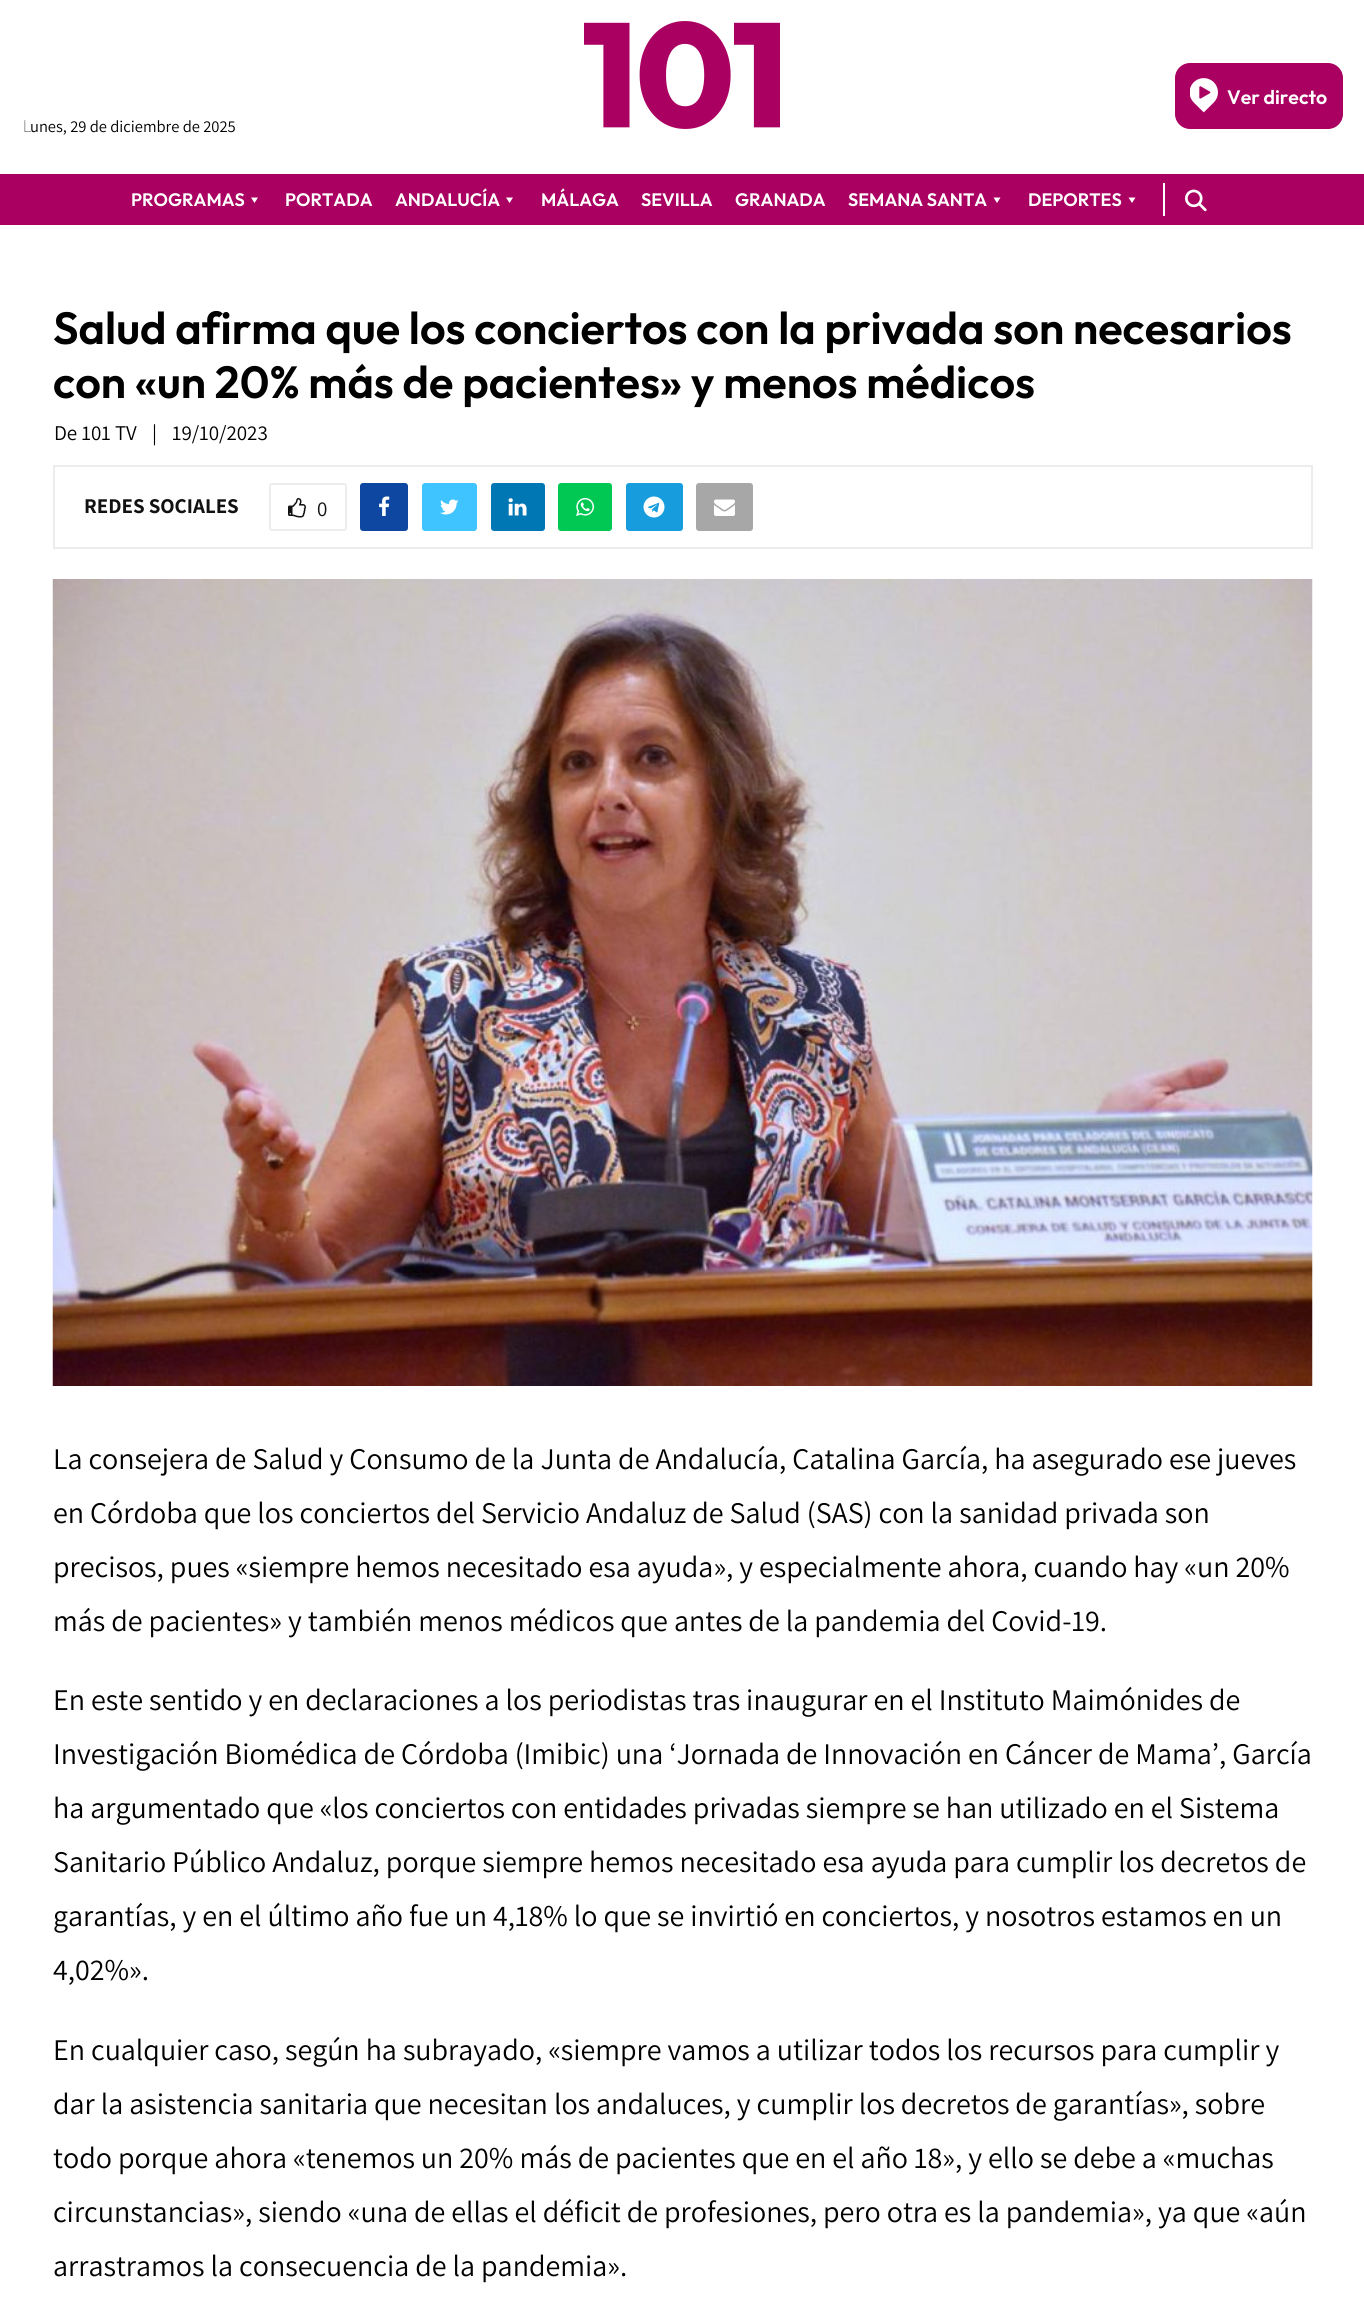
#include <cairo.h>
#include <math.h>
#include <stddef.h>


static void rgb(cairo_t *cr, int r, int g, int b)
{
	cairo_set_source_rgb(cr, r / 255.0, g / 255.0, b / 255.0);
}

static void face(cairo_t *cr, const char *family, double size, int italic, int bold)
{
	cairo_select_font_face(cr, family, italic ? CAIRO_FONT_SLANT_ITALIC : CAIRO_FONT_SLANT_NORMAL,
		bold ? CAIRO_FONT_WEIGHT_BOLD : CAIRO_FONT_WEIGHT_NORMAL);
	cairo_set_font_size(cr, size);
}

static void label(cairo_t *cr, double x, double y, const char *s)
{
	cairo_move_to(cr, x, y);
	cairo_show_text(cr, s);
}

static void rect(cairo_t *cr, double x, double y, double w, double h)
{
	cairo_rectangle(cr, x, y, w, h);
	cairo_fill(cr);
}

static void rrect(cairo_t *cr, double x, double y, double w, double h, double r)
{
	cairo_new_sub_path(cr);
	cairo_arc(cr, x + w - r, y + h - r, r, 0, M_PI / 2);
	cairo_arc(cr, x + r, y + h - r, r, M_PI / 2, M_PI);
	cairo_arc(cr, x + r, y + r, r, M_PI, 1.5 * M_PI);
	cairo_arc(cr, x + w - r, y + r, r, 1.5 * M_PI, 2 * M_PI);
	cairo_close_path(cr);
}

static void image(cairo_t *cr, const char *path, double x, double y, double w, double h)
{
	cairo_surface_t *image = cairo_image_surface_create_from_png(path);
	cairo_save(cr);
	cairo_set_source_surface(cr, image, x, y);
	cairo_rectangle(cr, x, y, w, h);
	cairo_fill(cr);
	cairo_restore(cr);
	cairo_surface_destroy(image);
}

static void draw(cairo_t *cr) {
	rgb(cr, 255, 255, 255);
	cairo_paint(cr);
	image(cr, "image0.png", 584, 21, 196, 108);
	rgb(cr, 170, 0, 97);
	rrect(cr, 1175, 63, 168, 66, 15);
	cairo_fill(cr);
	image(cr, "image1.png", 1190, 78, 28, 35);
	face(cr, "Outfit SemiBold", 19.5, 0, 0);
	rgb(cr, 255, 255, 255);
	label(cr, 1227, 104, "Ver directo");
	face(cr, "Noto Sans Thin", 16.5, 0, 0);
	rgb(cr, 0, 0, 0);
	label(cr, 23, 132, "L");
	face(cr, "Assistant", 16.5, 0, 0);
	label(cr, 30, 132, "unes, 29 de diciembre de 2025");
	rgb(cr, 170, 0, 97);
	rect(cr, 0, 174, 1364, 51);
	face(cr, "Outfit SemiBold", 18, 0, 0);
	rgb(cr, 255, 255, 255);
	label(cr, 131, 206, "PROGRAMAS");
	cairo_new_path(cr);
	cairo_move_to(cr, 258, 197.5);
	cairo_line_to(cr, 254.5, 203);
	cairo_line_to(cr, 251, 197.5);
	cairo_close_path(cr);
	cairo_fill(cr);
	label(cr, 285, 206, "PORTADA");
	label(cr, 395, 206, "ANDALUCÍA");
	cairo_new_path(cr);
	cairo_move_to(cr, 513, 197.5);
	cairo_line_to(cr, 509.5, 203);
	cairo_line_to(cr, 506, 197.5);
	cairo_close_path(cr);
	cairo_fill(cr);
	label(cr, 541, 206, "MÁLAGA");
	label(cr, 641, 206, "SEVILLA");
	label(cr, 735, 206, "GRANADA");
	label(cr, 848, 206, "SEMANA SANTA");
	cairo_new_path(cr);
	cairo_move_to(cr, 1000.5, 197.5);
	cairo_line_to(cr, 997, 203);
	cairo_line_to(cr, 993.5, 197.5);
	cairo_close_path(cr);
	cairo_fill(cr);
	label(cr, 1028, 206, "DEPORTES");
	cairo_new_path(cr);
	cairo_move_to(cr, 1135.5, 197.5);
	cairo_line_to(cr, 1132, 203);
	cairo_line_to(cr, 1128.5, 197.5);
	cairo_close_path(cr);
	cairo_fill(cr);
	rect(cr, 1163, 183, 2, 33);
	image(cr, "image2.png", 1185, 189, 22, 23);
	face(cr, "Outfit SemiBold", 45, 0, 0);
	rgb(cr, 0, 0, 0);
	label(cr, 53, 344, "Salud afirma que los conciertos con la privada son necesarios");
	label(cr, 53, 398, "con «un 20% más de pacientes» y menos médicos");
	face(cr, "Assistant", 21, 0, 0);
	label(cr, 54, 440, "De 101 TV");
	label(cr, 152, 440, "|");
	label(cr, 172, 440, "19/10/2023");
	cairo_rectangle(cr, 54, 466, 1258, 82);
	rgb(cr, 236, 236, 236);
	cairo_stroke(cr);
	face(cr, "Assistant", 21, 0, 1);
	rgb(cr, 17, 17, 17);
	label(cr, 84, 513, "REDES SOCIALES");
	rrect(cr, 270, 484, 76, 46, 2);
	rgb(cr, 236, 236, 236);
	cairo_stroke(cr);
	image(cr, "image3.png", 288, 498, 18, 20);
	face(cr, "Assistant", 21, 0, 0);
	rgb(cr, 17, 17, 17);
	label(cr, 317, 516, "0");
	rgb(cr, 13, 71, 161);
	rrect(cr, 360, 483, 48, 48, 3);
	cairo_fill(cr);
	image(cr, "image4.png", 379, 496, 11, 20);
	rgb(cr, 64, 196, 255);
	rrect(cr, 422, 483, 55, 48, 3);
	cairo_fill(cr);
	image(cr, "image5.png", 440, 499, 19, 16);
	rgb(cr, 0, 119, 181);
	rrect(cr, 491, 483, 54, 48, 3);
	cairo_fill(cr);
	image(cr, "image6.png", 508, 498, 19, 18);
	rgb(cr, 0, 200, 83);
	rrect(cr, 558, 483, 54, 48, 3);
	cairo_fill(cr);
	image(cr, "image7.png", 576, 497, 18, 19);
	rgb(cr, 23, 156, 222);
	rrect(cr, 626, 483, 57, 48, 3);
	cairo_fill(cr);
	image(cr, "image8.png", 643, 496, 22, 22);
	rgb(cr, 167, 167, 167);
	rrect(cr, 696, 483, 57, 48, 3);
	cairo_fill(cr);
	image(cr, "image9.png", 714, 499, 21, 17);
	image(cr, "image10.png", 52, 579, 1261, 807);
	face(cr, "Assistant", 30, 0, 0);
	rgb(cr, 0, 0, 0);
	label(cr, 53, 1469, "La consejera de Salud y Consumo de la Junta de Andalucía, Catalina García, ha asegurado ese jueves");
	label(cr, 53, 1523, "en Córdoba que los conciertos del Servicio Andaluz de Salud (SAS) con la sanidad privada son");
	label(cr, 53, 1577, "precisos, pues «siempre hemos necesitado esa ayuda», y especialmente ahora, cuando hay «un 20%");
	label(cr, 53, 1631, "más de pacientes» y también menos médicos que antes de la pandemia del Covid-19.");
	label(cr, 53, 1710, "En este sentido y en declaraciones a los periodistas tras inaugurar en el Instituto Maimónides de");
	label(cr, 53, 1764, "Investigación Biomédica de Córdoba (Imibic) una ‘Jornada de Innovación en Cáncer de Mama’, García");
	label(cr, 53, 1818, "ha argumentado que «los conciertos con entidades privadas siempre se han utilizado en el Sistema");
	label(cr, 53, 1872, "Sanitario Público Andaluz, porque siempre hemos necesitado esa ayuda para cumplir los decretos de");
	label(cr, 53, 1926, "garantías, y en el último año fue un 4,18% lo que se invirtió en conciertos, y nosotros estamos en un");
	label(cr, 53, 1980, "4,02%».");
	label(cr, 53, 2060, "En cualquier caso, según ha subrayado, «siempre vamos a utilizar todos los recursos para cumplir y");
	label(cr, 53, 2114, "dar la asistencia sanitaria que necesitan los andaluces, y cumplir los decretos de garantías», sobre");
	label(cr, 53, 2168, "todo porque ahora «tenemos un 20% más de pacientes que en el año 18», y ello se debe a «muchas");
	label(cr, 53, 2222, "circunstancias», siendo «una de ellas el déficit de profesiones, pero otra es la pandemia», ya que «aún");
	label(cr, 53, 2276, "arrastramos la consecuencia de la pandemia».");
}

int main(void) {
	cairo_surface_t *surface = cairo_image_surface_create(CAIRO_FORMAT_RGB24, 1364, 2301);
	cairo_t *cr = cairo_create(surface);
	cairo_font_options_t *options = cairo_font_options_create();
	cairo_font_options_set_hint_metrics(options, CAIRO_HINT_METRICS_OFF);
	cairo_font_options_set_hint_style(options, CAIRO_HINT_STYLE_NONE);
	cairo_set_font_options(cr, options);
	cairo_set_miter_limit(cr, 4);
	draw(cr);
	cairo_surface_write_to_png(surface, "render.png");
	cairo_font_options_destroy(options);
	cairo_destroy(cr);
	cairo_surface_destroy(surface);
	return 0;
}
